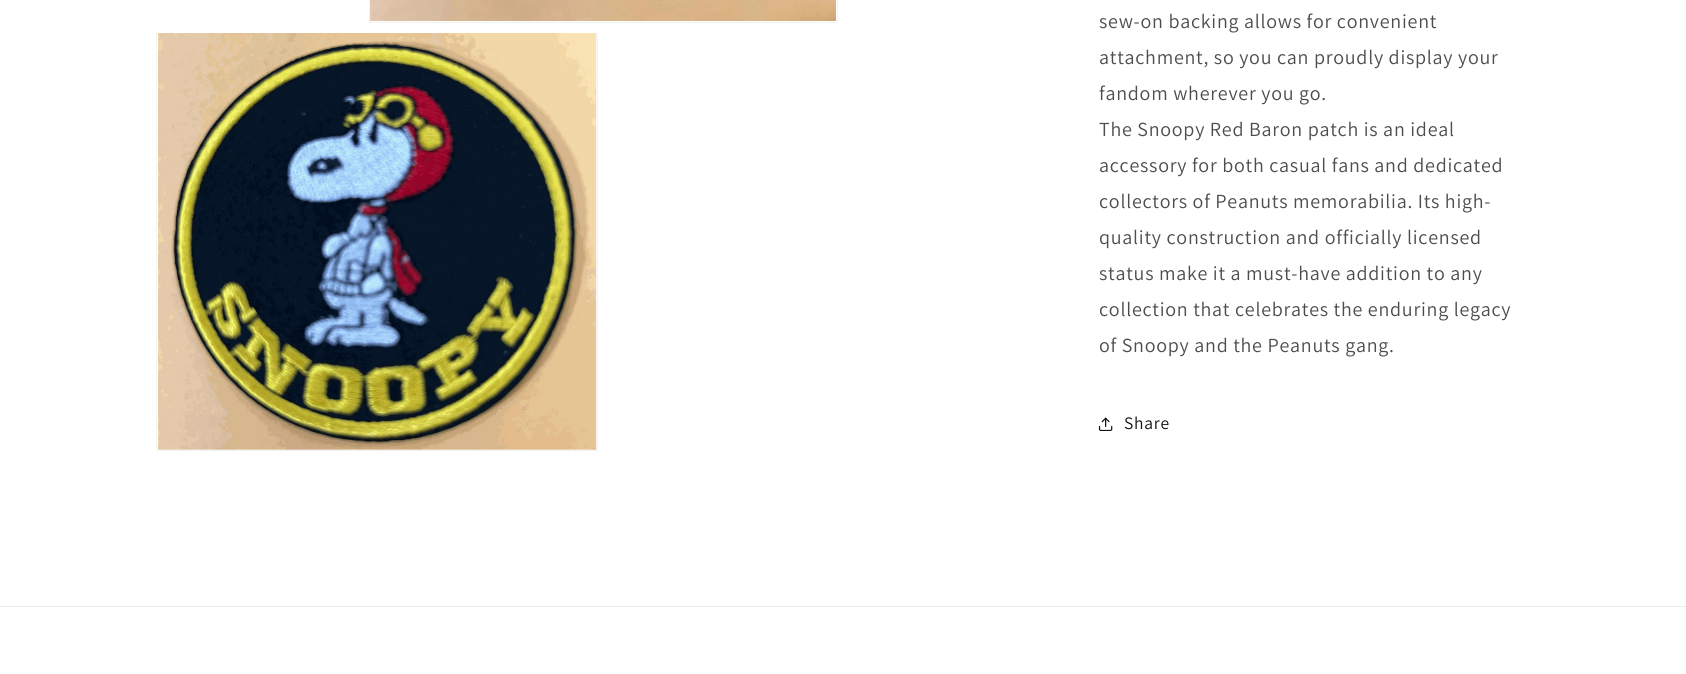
#include <cairo.h>
#include <math.h>
#include <stddef.h>


static void rgb(cairo_t *cr, int r, int g, int b)
{
	cairo_set_source_rgb(cr, r / 255.0, g / 255.0, b / 255.0);
}

static void face(cairo_t *cr, const char *family, double size, int italic, int bold)
{
	cairo_select_font_face(cr, family, italic ? CAIRO_FONT_SLANT_ITALIC : CAIRO_FONT_SLANT_NORMAL,
		bold ? CAIRO_FONT_WEIGHT_BOLD : CAIRO_FONT_WEIGHT_NORMAL);
	cairo_set_font_size(cr, size);
}

static void tracked(cairo_t *cr, double x, double y, const char *s, double letter, double word)
{
	cairo_move_to(cr, x, y);
	while (*s) {
		char ch[5] = {0};
		int n = 0;
		do ch[n++] = *s++; while ((*s & 0xC0) == 0x80);
		cairo_show_text(cr, ch);
		cairo_rel_move_to(cr, letter + word * (*ch == ' '), 0);
	}
}

static void rect(cairo_t *cr, double x, double y, double w, double h)
{
	cairo_rectangle(cr, x, y, w, h);
	cairo_fill(cr);
}

static void image(cairo_t *cr, const char *path, double x, double y, double w, double h)
{
	cairo_surface_t *image = cairo_image_surface_create_from_png(path);
	cairo_save(cr);
	cairo_set_source_surface(cr, image, x, y);
	cairo_rectangle(cr, x, y, w, h);
	cairo_fill(cr);
	cairo_restore(cr);
	cairo_surface_destroy(image);
}

static void draw(cairo_t *cr) {
	rgb(cr, 255, 255, 255);
	cairo_paint(cr);
	cairo_rectangle(cr, 369.5, -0.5, 468, 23);
	rgb(cr, 243, 243, 243);
	cairo_set_line_width(cr, 1);
	cairo_stroke(cr);
	image(cr, "image0.png", 370, 0, 466, 21);
	cairo_rectangle(cr, 156.5, 33.5, 441, 417);
	cairo_stroke(cr);
	image(cr, "image1.png", 158, 33, 439, 417);
	face(cr, "Assistant", 20, 0, 0);
	rgb(cr, 77, 77, 77);
	tracked(cr, 1099, 28, "sew-on backing allows for convenient", 0.75, 0);
	tracked(cr, 1099, 64, "attachment, so you can proudly display your", 0.75, 0);
	tracked(cr, 1099, 100, "fandom wherever you go.", 0.75, 0);
	tracked(cr, 1099, 136, "The Snoopy Red Baron patch is an ideal", 0.75, 0);
	tracked(cr, 1099, 172, "accessory for both casual fans and dedicated", 0.75, 0);
	tracked(cr, 1099, 208, "collectors of Peanuts memorabilia. Its high-", 0.75, 0);
	tracked(cr, 1099, 244, "quality construction and officially licensed", 0.75, 0);
	tracked(cr, 1099, 280, "status make it a must-have addition to any", 0.75, 0);
	tracked(cr, 1099, 316, "collection that celebrates the enduring legacy", 0.75, 0);
	tracked(cr, 1099, 352, "of Snoopy and the Peanuts gang.", 0.75, 0);
	image(cr, "image2.png", 1098, 417, 15, 14);
	face(cr, "Assistant", 17.5, 0, 0);
	rgb(cr, 18, 18, 18);
	tracked(cr, 1124, 429, "Share", 0.75, 0);
	rgb(cr, 236, 236, 236);
	rect(cr, 0, 606, 1686, 1);
}

int main(void) {
	cairo_surface_t *surface = cairo_image_surface_create(CAIRO_FORMAT_RGB24, 1686, 674);
	cairo_t *cr = cairo_create(surface);
	cairo_font_options_t *options = cairo_font_options_create();
	cairo_font_options_set_hint_metrics(options, CAIRO_HINT_METRICS_OFF);
	cairo_font_options_set_hint_style(options, CAIRO_HINT_STYLE_NONE);
	cairo_set_font_options(cr, options);
	cairo_set_miter_limit(cr, 4);
	draw(cr);
	cairo_surface_write_to_png(surface, "render.png");
	cairo_font_options_destroy(options);
	cairo_destroy(cr);
	cairo_surface_destroy(surface);
	return 0;
}
